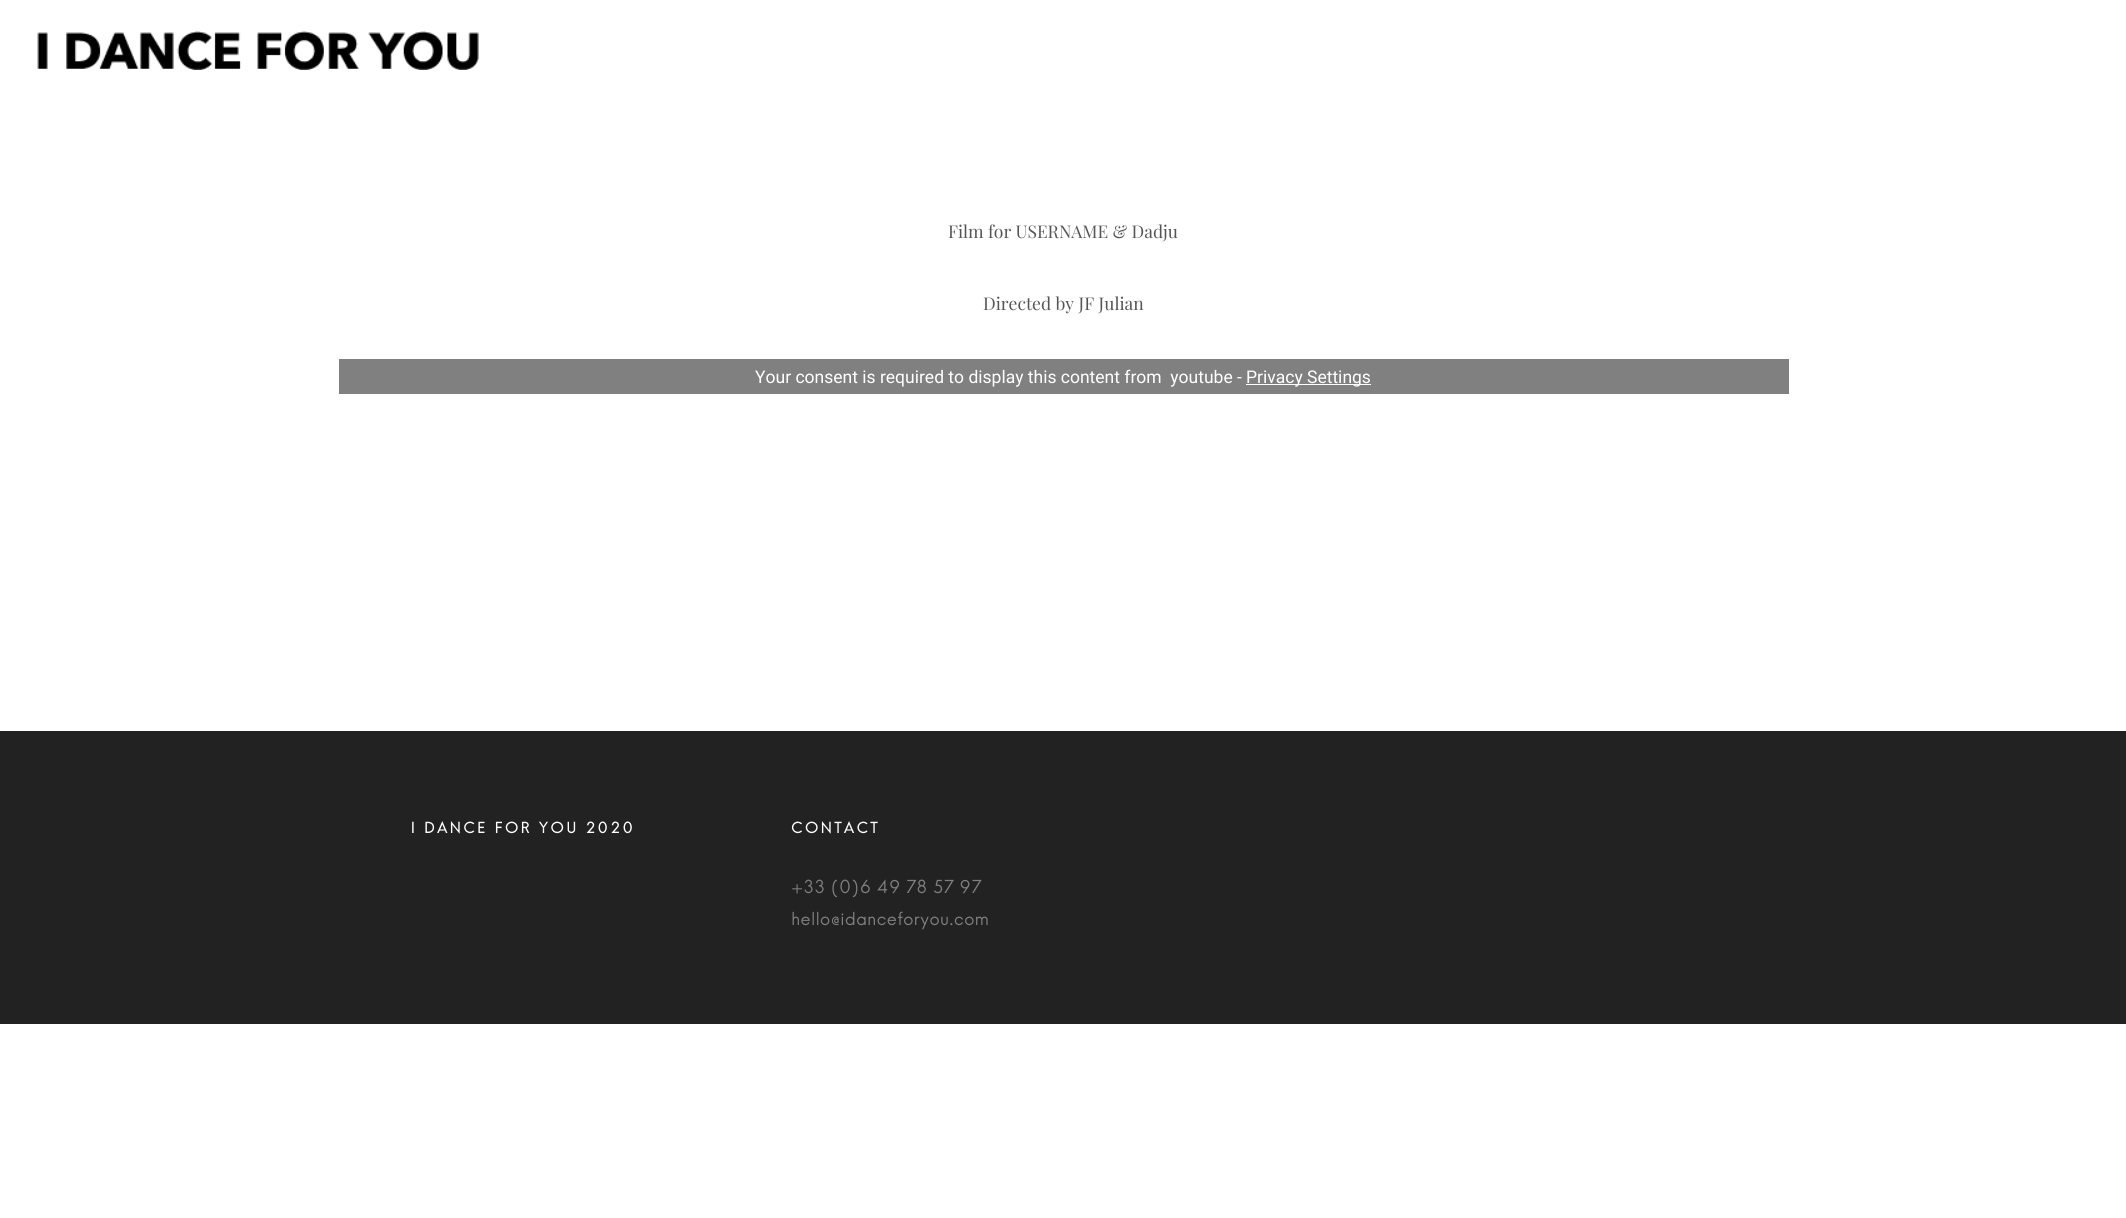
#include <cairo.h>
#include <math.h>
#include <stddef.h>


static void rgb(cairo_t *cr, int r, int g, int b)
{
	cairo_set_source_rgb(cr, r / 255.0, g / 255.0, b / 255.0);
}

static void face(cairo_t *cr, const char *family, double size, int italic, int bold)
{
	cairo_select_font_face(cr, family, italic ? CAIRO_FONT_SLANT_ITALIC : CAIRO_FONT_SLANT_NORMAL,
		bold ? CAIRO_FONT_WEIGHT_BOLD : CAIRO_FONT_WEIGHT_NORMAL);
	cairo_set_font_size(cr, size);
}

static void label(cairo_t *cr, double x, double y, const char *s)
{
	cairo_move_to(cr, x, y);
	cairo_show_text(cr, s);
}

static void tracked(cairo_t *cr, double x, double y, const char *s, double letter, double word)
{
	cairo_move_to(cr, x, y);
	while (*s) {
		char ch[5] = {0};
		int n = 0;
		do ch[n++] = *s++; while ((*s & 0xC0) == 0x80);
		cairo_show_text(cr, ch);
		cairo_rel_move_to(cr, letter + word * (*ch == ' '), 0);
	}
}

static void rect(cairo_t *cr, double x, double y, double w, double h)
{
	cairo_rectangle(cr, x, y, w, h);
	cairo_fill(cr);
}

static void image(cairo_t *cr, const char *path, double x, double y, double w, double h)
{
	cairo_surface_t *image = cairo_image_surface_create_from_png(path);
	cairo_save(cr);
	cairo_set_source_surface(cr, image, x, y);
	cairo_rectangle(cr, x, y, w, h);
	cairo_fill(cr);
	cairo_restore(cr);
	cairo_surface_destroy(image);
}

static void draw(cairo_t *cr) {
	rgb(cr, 255, 255, 255);
	cairo_paint(cr);
	image(cr, "image0.png", 37, 31, 442, 39);
	face(cr, "Playfair Display", 17.5, 0, 0);
	rgb(cr, 85, 85, 85);
	label(cr, 948, 238, "Film for USERNAME & Dadju");
	label(cr, 983, 310, "Directed by JF Julian");
	rgb(cr, 128, 128, 128);
	rect(cr, 339, 359, 1450, 35);
	face(cr, "Roboto", 17.5, 0, 0);
	rgb(cr, 255, 255, 255);
	label(cr, 755, 383, "Your consent is required to display this content from  youtube -");
	rect(cr, 1246, 384, 125, 1);
	label(cr, 1246, 383, "Privacy Settings");
	rgb(cr, 34, 34, 34);
	rect(cr, 0, 731, 2126, 293);
	face(cr, "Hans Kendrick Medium", 15, 0, 0);
	rgb(cr, 255, 255, 255);
	tracked(cr, 411, 833, "I DANCE FOR YOU 2020", 2.5, 0);
	tracked(cr, 791, 833, "CONTACT", 2.5, 0);
	face(cr, "Hans Kendrick", 17.5, 0, 0);
	rgb(cr, 128, 128, 128);
	label(cr, 791, 893, "+33 (0)6 49 78 57 97");
	label(cr, 791, 925, "hello@idanceforyou.com");
}

int main(void) {
	cairo_surface_t *surface = cairo_image_surface_create(CAIRO_FORMAT_RGB24, 2126, 1218);
	cairo_t *cr = cairo_create(surface);
	cairo_font_options_t *options = cairo_font_options_create();
	cairo_font_options_set_hint_metrics(options, CAIRO_HINT_METRICS_OFF);
	cairo_font_options_set_hint_style(options, CAIRO_HINT_STYLE_NONE);
	cairo_set_font_options(cr, options);
	cairo_set_miter_limit(cr, 4);
	draw(cr);
	cairo_surface_write_to_png(surface, "render.png");
	cairo_font_options_destroy(options);
	cairo_destroy(cr);
	cairo_surface_destroy(surface);
	return 0;
}
